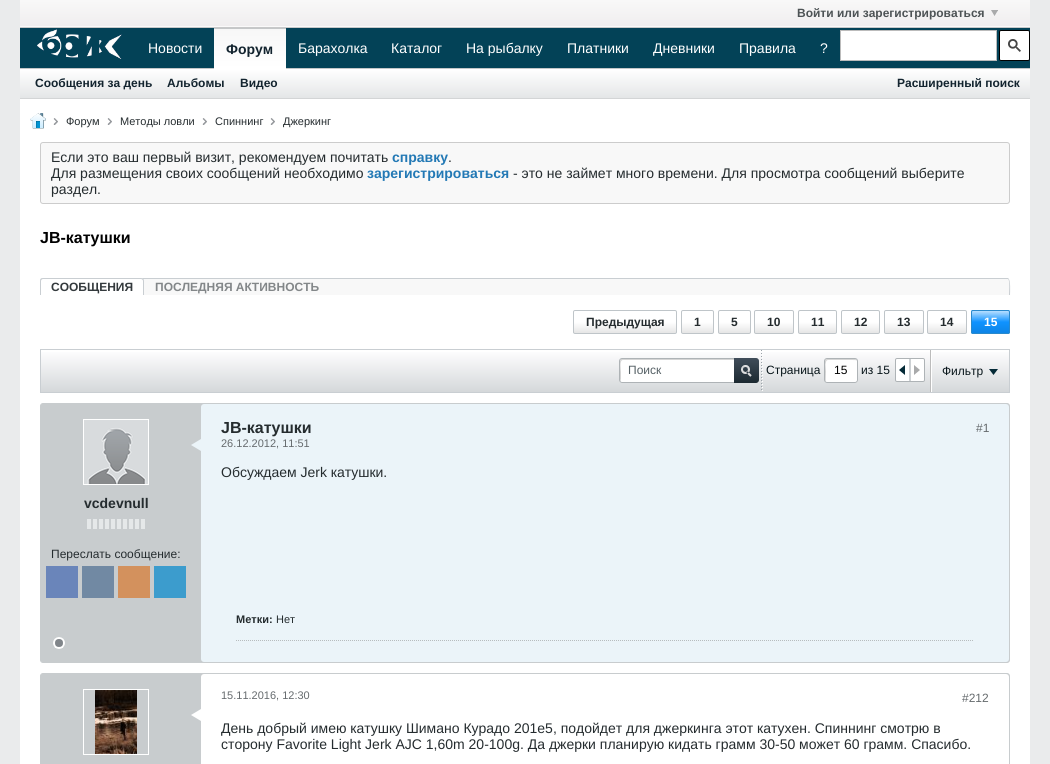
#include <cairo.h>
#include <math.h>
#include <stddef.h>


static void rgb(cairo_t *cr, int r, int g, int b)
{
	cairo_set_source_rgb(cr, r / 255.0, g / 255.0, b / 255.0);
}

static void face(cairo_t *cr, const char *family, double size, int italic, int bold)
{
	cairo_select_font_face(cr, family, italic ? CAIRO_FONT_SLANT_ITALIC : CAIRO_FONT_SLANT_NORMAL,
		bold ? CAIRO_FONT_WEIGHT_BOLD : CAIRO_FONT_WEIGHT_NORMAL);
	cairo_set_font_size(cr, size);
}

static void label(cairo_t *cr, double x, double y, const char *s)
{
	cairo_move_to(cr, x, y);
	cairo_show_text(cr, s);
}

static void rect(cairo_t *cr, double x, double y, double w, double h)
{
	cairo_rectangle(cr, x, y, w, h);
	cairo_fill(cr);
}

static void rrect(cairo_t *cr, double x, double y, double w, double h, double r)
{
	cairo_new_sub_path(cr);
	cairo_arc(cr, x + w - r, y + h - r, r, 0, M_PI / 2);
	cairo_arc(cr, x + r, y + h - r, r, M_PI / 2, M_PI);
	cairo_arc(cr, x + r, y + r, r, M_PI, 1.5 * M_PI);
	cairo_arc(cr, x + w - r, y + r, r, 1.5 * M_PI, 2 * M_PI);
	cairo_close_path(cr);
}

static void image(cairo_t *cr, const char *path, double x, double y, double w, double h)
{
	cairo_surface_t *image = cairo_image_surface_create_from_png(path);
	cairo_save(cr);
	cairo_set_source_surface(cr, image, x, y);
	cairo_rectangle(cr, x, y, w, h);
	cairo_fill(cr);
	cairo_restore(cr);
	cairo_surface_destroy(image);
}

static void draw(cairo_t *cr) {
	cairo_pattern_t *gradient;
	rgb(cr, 234, 235, 236);
	cairo_paint(cr);
	gradient = cairo_pattern_create_linear(525, 0, 525, 28);
	cairo_pattern_add_color_stop_rgba(gradient, 0, 0.973, 0.973, 0.973, 1);
	cairo_pattern_add_color_stop_rgba(gradient, 1, 0.937, 0.929, 0.933, 1);
	cairo_set_source(cr, gradient);
	cairo_pattern_destroy(gradient);
	rect(cr, 20, 0, 1010, 26);
	face(cr, "Liberation Sans", 12, 0, 1);
	rgb(cr, 77, 83, 85);
	label(cr, 797, 17, "Войти или зарегистрироваться");
	image(cr, "image0.png", 991, 10, 7, 6);
	rgb(cr, 250, 250, 250);
	rect(cr, 20, 26, 1010, 1);
	rgb(cr, 199, 200, 201);
	rect(cr, 20, 27, 1010, 1);
	rgb(cr, 3, 66, 87);
	rect(cr, 20, 28, 1010, 40);
	rgb(cr, 196, 199, 200);
	rect(cr, 20, 68, 1010, 1);
	image(cr, "image1.png", 37, 29, 85, 30);
	face(cr, "Liberation Sans", 14, 0, 0);
	rgb(cr, 255, 255, 255);
	label(cr, 148, 53, "Новости");
	gradient = cairo_pattern_create_linear(250, -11, 250, 29);
	cairo_pattern_add_color_stop_rgba(gradient, 0, 0.969, 0.969, 0.969, 1);
	cairo_pattern_add_color_stop_rgba(gradient, 1, 1, 1, 1, 1);
	cairo_set_source(cr, gradient);
	cairo_pattern_destroy(gradient);
	cairo_new_path(cr);
	cairo_move_to(cr, 215, 28);
	cairo_line_to(cr, 285, 28);
	cairo_curve_to(cr, 285.5, 28, 286, 28.5, 286, 29);
	cairo_line_to(cr, 214, 29);
	cairo_curve_to(cr, 214, 28.5, 214.5, 28, 215, 28);
	cairo_close_path(cr);
	cairo_fill(cr);
	gradient = cairo_pattern_create_linear(250, 29, 250, 69);
	cairo_pattern_add_color_stop_rgba(gradient, 0, 0.969, 0.969, 0.969, 1);
	cairo_pattern_add_color_stop_rgba(gradient, 1, 1, 1, 1, 1);
	cairo_set_source(cr, gradient);
	cairo_pattern_destroy(gradient);
	rect(cr, 214, 29, 72, 40);
	rgb(cr, 196, 199, 200);
	rect(cr, 215, 28, 71, 1);
	face(cr, "Liberation Sans", 14, 0, 1);
	rgb(cr, 19, 36, 47);
	label(cr, 226, 54, "Форум");
	face(cr, "Liberation Sans", 14, 0, 0);
	rgb(cr, 255, 255, 255);
	label(cr, 298, 53, "Барахолка");
	label(cr, 391, 53, "Каталог");
	label(cr, 466, 53, "На рыбалку");
	label(cr, 567, 53, "Платники");
	label(cr, 653, 53, "Дневники");
	label(cr, 739, 53, "Правила");
	label(cr, 820, 53, "?");
	cairo_rectangle(cr, 840.5, 30.5, 156, 30);
	cairo_fill_preserve(cr);
	rgb(cr, 187, 187, 187);
	cairo_set_line_width(cr, 1);
	cairo_stroke(cr);
	rgb(cr, 255, 255, 255);
	rrect(cr, 999.5, 30.5, 30, 30, 1.5);
	cairo_fill_preserve(cr);
	rgb(cr, 0, 0, 0);
	cairo_stroke(cr);
	image(cr, "image2.png", 1008, 39, 13, 13);
	gradient = cairo_pattern_create_linear(525, 98, 525, 69);
	cairo_pattern_add_color_stop_rgba(gradient, 0, 0.894, 0.902, 0.906, 1);
	cairo_pattern_add_color_stop_rgba(gradient, 1, 1, 1, 1, 1);
	cairo_set_source(cr, gradient);
	cairo_pattern_destroy(gradient);
	rect(cr, 20, 69, 1010, 29);
	rgb(cr, 211, 213, 214);
	rect(cr, 20, 98, 1010, 1);
	face(cr, "Liberation Sans", 12, 0, 1);
	rgb(cr, 19, 36, 47);
	label(cr, 35, 87, "Сообщения за день");
	label(cr, 167, 87, "Альбомы");
	label(cr, 240, 87, "Видео");
	label(cr, 897, 87, "Расширенный поиск");
	rgb(cr, 255, 255, 255);
	rect(cr, 20, 99, 1010, 665);
	image(cr, "image3.png", 30, 113, 16, 16);
	image(cr, "image4.png", 53, 118, 5, 7);
	face(cr, "Liberation Sans", 11, 0, 0);
	rgb(cr, 37, 44, 47);
	label(cr, 66, 125, "Форум");
	image(cr, "image4.png", 107, 118, 5, 7);
	label(cr, 120, 125, "Методы ловли");
	image(cr, "image4.png", 202, 118, 5, 7);
	label(cr, 215, 125, "Спиннинг");
	image(cr, "image4.png", 270, 118, 5, 7);
	label(cr, 283, 125, "Джеркинг");
	rgb(cr, 248, 248, 248);
	rrect(cr, 40.5, 142.5, 969, 61, 2.5);
	cairo_fill_preserve(cr);
	rgb(cr, 204, 204, 204);
	cairo_stroke(cr);
	face(cr, "Liberation Sans", 14, 0, 0);
	rgb(cr, 37, 44, 47);
	label(cr, 51, 162, "Если это ваш первый визит, рекомендуем почитать");
	face(cr, "Liberation Sans", 14, 0, 1);
	rgb(cr, 35, 121, 181);
	label(cr, 392, 162, "справку");
	face(cr, "Liberation Sans", 14, 0, 0);
	rgb(cr, 37, 44, 47);
	label(cr, 448, 162, ".");
	label(cr, 51, 178, "Для размещения своих сообщений необходимо");
	face(cr, "Liberation Sans", 14, 0, 1);
	rgb(cr, 35, 121, 181);
	label(cr, 367, 178, "зарегистрироваться");
	face(cr, "Liberation Sans", 14, 0, 0);
	rgb(cr, 37, 44, 47);
	label(cr, 513, 178, "- это не займет много времени. Для просмотра сообщений выберите");
	label(cr, 51, 194, "раздел.");
	face(cr, "Liberation Sans", 16, 0, 1);
	rgb(cr, 0, 0, 0);
	label(cr, 40, 243, "JB-катушки");
	rgb(cr, 248, 248, 248);
	cairo_new_path(cr);
	cairo_move_to(cr, 43, 278);
	cairo_line_to(cr, 1007, 278);
	cairo_curve_to(cr, 1008.5, 278, 1010, 279.5, 1010, 281);
	cairo_line_to(cr, 1010, 295);
	cairo_line_to(cr, 40, 295);
	cairo_line_to(cr, 40, 281);
	cairo_curve_to(cr, 40, 279.5, 41.5, 278, 43, 278);
	cairo_close_path(cr);
	cairo_fill(cr);
	rgb(cr, 201, 206, 210);
	cairo_set_fill_rule(cr, CAIRO_FILL_RULE_EVEN_ODD);
	cairo_new_path(cr);
	cairo_move_to(cr, 43, 278);
	cairo_line_to(cr, 1008, 278);
	cairo_curve_to(cr, 1011, 280, 1010, 292, 1010, 295);
	cairo_line_to(cr, 40, 295);
	cairo_line_to(cr, 40, 281);
	cairo_curve_to(cr, 40, 279, 41, 278, 43, 278);
	cairo_close_path(cr);
	cairo_move_to(cr, 43, 279);
	cairo_line_to(cr, 1008, 279);
	cairo_curve_to(cr, 1010, 280, 1009, 292, 1009, 295);
	cairo_line_to(cr, 41, 295);
	cairo_line_to(cr, 41, 281);
	cairo_curve_to(cr, 41, 280, 42, 279, 43, 279);
	cairo_close_path(cr);
	cairo_fill(cr);
	rgb(cr, 248, 248, 248);
	cairo_new_path(cr);
	cairo_move_to(cr, 44, 279);
	cairo_line_to(cr, 327, 279);
	cairo_curve_to(cr, 328.5, 279, 330, 280.5, 330, 282);
	cairo_line_to(cr, 330, 295);
	cairo_line_to(cr, 41, 295);
	cairo_line_to(cr, 41, 282);
	cairo_curve_to(cr, 41, 280.5, 42.5, 279, 44, 279);
	cairo_close_path(cr);
	cairo_fill(cr);
	rgb(cr, 255, 255, 255);
	cairo_new_path(cr);
	cairo_move_to(cr, 43, 278);
	cairo_line_to(cr, 141, 278);
	cairo_curve_to(cr, 142.5, 278, 144, 279.5, 144, 281);
	cairo_line_to(cr, 144, 295);
	cairo_line_to(cr, 40, 295);
	cairo_line_to(cr, 40, 281);
	cairo_curve_to(cr, 40, 279.5, 41.5, 278, 43, 278);
	cairo_close_path(cr);
	cairo_fill(cr);
	rgb(cr, 201, 206, 210);
	cairo_new_path(cr);
	cairo_move_to(cr, 43, 278);
	cairo_line_to(cr, 141, 278);
	cairo_curve_to(cr, 143, 278, 144, 279, 144, 281);
	cairo_line_to(cr, 144, 295);
	cairo_line_to(cr, 40, 295);
	cairo_line_to(cr, 40, 281);
	cairo_curve_to(cr, 40, 279, 41, 278, 43, 278);
	cairo_close_path(cr);
	cairo_move_to(cr, 43, 279);
	cairo_line_to(cr, 141, 279);
	cairo_curve_to(cr, 142, 279, 143, 280, 143, 281);
	cairo_line_to(cr, 143, 295);
	cairo_line_to(cr, 41, 295);
	cairo_line_to(cr, 41, 281);
	cairo_curve_to(cr, 41, 280, 42, 279, 43, 279);
	cairo_close_path(cr);
	cairo_fill(cr);
	face(cr, "Liberation Sans", 12, 0, 1);
	rgb(cr, 52, 58, 61);
	label(cr, 51, 291, "СООБЩЕНИЯ");
	rgb(cr, 131, 135, 137);
	label(cr, 155, 291, "ПОСЛЕДНЯЯ АКТИВНОСТЬ");
	cairo_save(cr);
	cairo_set_fill_rule(cr, CAIRO_FILL_RULE_WINDING);
	rrect(cr, 573, 310, 104, 24, 2);
	cairo_clip(cr);
	gradient = cairo_pattern_create_linear(625, 333, 625, 311);
	cairo_pattern_add_color_stop_rgba(gradient, 0, 0.902, 0.902, 0.902, 1);
	cairo_pattern_add_color_stop_rgba(gradient, 0.5, 1, 1, 1, 1);
	cairo_pattern_add_color_stop_rgba(gradient, 1, 1, 1, 1, 1);
	cairo_set_source(cr, gradient);
	cairo_pattern_destroy(gradient);
	rect(cr, 573, 311, 104, 22);
	cairo_restore(cr);
	rrect(cr, 573.5, 310.5, 103, 23, 1.5);
	rgb(cr, 191, 197, 201);
	cairo_stroke(cr);
	rgb(cr, 37, 44, 47);
	label(cr, 586, 326, "Предыдущая");
	cairo_save(cr);
	cairo_set_fill_rule(cr, CAIRO_FILL_RULE_WINDING);
	rrect(cr, 681, 310, 33, 24, 2);
	cairo_clip(cr);
	gradient = cairo_pattern_create_linear(698, 333, 698, 311);
	cairo_pattern_add_color_stop_rgba(gradient, 0, 0.902, 0.902, 0.902, 1);
	cairo_pattern_add_color_stop_rgba(gradient, 0.5, 1, 1, 1, 1);
	cairo_pattern_add_color_stop_rgba(gradient, 1, 1, 1, 1, 1);
	cairo_set_source(cr, gradient);
	cairo_pattern_destroy(gradient);
	rect(cr, 681, 311, 33, 22);
	cairo_restore(cr);
	rrect(cr, 681.5, 310.5, 32, 23, 1.5);
	rgb(cr, 191, 197, 201);
	cairo_stroke(cr);
	rgb(cr, 37, 44, 47);
	label(cr, 694, 326, "1");
	cairo_save(cr);
	cairo_set_fill_rule(cr, CAIRO_FILL_RULE_WINDING);
	rrect(cr, 718, 310, 33, 24, 2);
	cairo_clip(cr);
	gradient = cairo_pattern_create_linear(735, 333, 735, 311);
	cairo_pattern_add_color_stop_rgba(gradient, 0, 0.902, 0.902, 0.902, 1);
	cairo_pattern_add_color_stop_rgba(gradient, 0.5, 1, 1, 1, 1);
	cairo_pattern_add_color_stop_rgba(gradient, 1, 1, 1, 1, 1);
	cairo_set_source(cr, gradient);
	cairo_pattern_destroy(gradient);
	rect(cr, 718, 311, 33, 22);
	cairo_restore(cr);
	rrect(cr, 718.5, 310.5, 32, 23, 1.5);
	rgb(cr, 191, 197, 201);
	cairo_stroke(cr);
	rgb(cr, 37, 44, 47);
	label(cr, 731, 326, "5");
	cairo_save(cr);
	cairo_set_fill_rule(cr, CAIRO_FILL_RULE_WINDING);
	rrect(cr, 754, 310, 40, 24, 2);
	cairo_clip(cr);
	gradient = cairo_pattern_create_linear(774, 333, 774, 311);
	cairo_pattern_add_color_stop_rgba(gradient, 0, 0.902, 0.902, 0.902, 1);
	cairo_pattern_add_color_stop_rgba(gradient, 0.5, 1, 1, 1, 1);
	cairo_pattern_add_color_stop_rgba(gradient, 1, 1, 1, 1, 1);
	cairo_set_source(cr, gradient);
	cairo_pattern_destroy(gradient);
	rect(cr, 754, 311, 40, 22);
	cairo_restore(cr);
	rrect(cr, 754.5, 310.5, 39, 23, 1.5);
	rgb(cr, 191, 197, 201);
	cairo_stroke(cr);
	rgb(cr, 37, 44, 47);
	label(cr, 767, 326, "10");
	cairo_save(cr);
	cairo_set_fill_rule(cr, CAIRO_FILL_RULE_WINDING);
	rrect(cr, 798, 310, 39, 24, 2);
	cairo_clip(cr);
	gradient = cairo_pattern_create_linear(818, 333, 818, 311);
	cairo_pattern_add_color_stop_rgba(gradient, 0, 0.902, 0.902, 0.902, 1);
	cairo_pattern_add_color_stop_rgba(gradient, 0.5, 1, 1, 1, 1);
	cairo_pattern_add_color_stop_rgba(gradient, 1, 1, 1, 1, 1);
	cairo_set_source(cr, gradient);
	cairo_pattern_destroy(gradient);
	rect(cr, 798, 311, 39, 22);
	cairo_restore(cr);
	rrect(cr, 798.5, 310.5, 38, 23, 1.5);
	rgb(cr, 191, 197, 201);
	cairo_stroke(cr);
	rgb(cr, 37, 44, 47);
	label(cr, 811, 326, "11");
	cairo_save(cr);
	cairo_set_fill_rule(cr, CAIRO_FILL_RULE_WINDING);
	rrect(cr, 841, 310, 39, 24, 2);
	cairo_clip(cr);
	gradient = cairo_pattern_create_linear(861, 333, 861, 311);
	cairo_pattern_add_color_stop_rgba(gradient, 0, 0.902, 0.902, 0.902, 1);
	cairo_pattern_add_color_stop_rgba(gradient, 0.5, 1, 1, 1, 1);
	cairo_pattern_add_color_stop_rgba(gradient, 1, 1, 1, 1, 1);
	cairo_set_source(cr, gradient);
	cairo_pattern_destroy(gradient);
	rect(cr, 841, 311, 39, 22);
	cairo_restore(cr);
	rrect(cr, 841.5, 310.5, 38, 23, 1.5);
	rgb(cr, 191, 197, 201);
	cairo_stroke(cr);
	rgb(cr, 37, 44, 47);
	label(cr, 854, 326, "12");
	cairo_save(cr);
	cairo_set_fill_rule(cr, CAIRO_FILL_RULE_WINDING);
	rrect(cr, 884, 310, 40, 24, 2);
	cairo_clip(cr);
	gradient = cairo_pattern_create_linear(904, 333, 904, 311);
	cairo_pattern_add_color_stop_rgba(gradient, 0, 0.902, 0.902, 0.902, 1);
	cairo_pattern_add_color_stop_rgba(gradient, 0.5, 1, 1, 1, 1);
	cairo_pattern_add_color_stop_rgba(gradient, 1, 1, 1, 1, 1);
	cairo_set_source(cr, gradient);
	cairo_pattern_destroy(gradient);
	rect(cr, 884, 311, 40, 22);
	cairo_restore(cr);
	rrect(cr, 884.5, 310.5, 39, 23, 1.5);
	rgb(cr, 191, 197, 201);
	cairo_stroke(cr);
	rgb(cr, 37, 44, 47);
	label(cr, 897, 326, "13");
	cairo_save(cr);
	cairo_set_fill_rule(cr, CAIRO_FILL_RULE_WINDING);
	rrect(cr, 927, 310, 40, 24, 2);
	cairo_clip(cr);
	gradient = cairo_pattern_create_linear(947, 333, 947, 311);
	cairo_pattern_add_color_stop_rgba(gradient, 0, 0.902, 0.902, 0.902, 1);
	cairo_pattern_add_color_stop_rgba(gradient, 0.5, 1, 1, 1, 1);
	cairo_pattern_add_color_stop_rgba(gradient, 1, 1, 1, 1, 1);
	cairo_set_source(cr, gradient);
	cairo_pattern_destroy(gradient);
	rect(cr, 927, 311, 40, 22);
	cairo_restore(cr);
	rrect(cr, 927.5, 310.5, 39, 23, 1.5);
	rgb(cr, 191, 197, 201);
	cairo_stroke(cr);
	rgb(cr, 37, 44, 47);
	label(cr, 940, 326, "14");
	rgb(cr, 15, 147, 255);
	rrect(cr, 971, 310, 39, 24, 2);
	cairo_fill(cr);
	gradient = cairo_pattern_create_linear(991, 333, 991, 311);
	cairo_pattern_add_color_stop_rgba(gradient, 0, 0, 0, 0, 0.1);
	cairo_pattern_add_color_stop_rgba(gradient, 0.5, 0, 0, 0, 0);
	cairo_pattern_add_color_stop_rgba(gradient, 0.5, 1, 1, 1, 0);
	cairo_pattern_add_color_stop_rgba(gradient, 1, 1, 1, 1, 0.7);
	cairo_set_source(cr, gradient);
	cairo_pattern_destroy(gradient);
	rect(cr, 971, 311, 39, 22);
	rrect(cr, 971.5, 310.5, 38, 23, 1.5);
	rgb(cr, 41, 137, 204);
	cairo_stroke(cr);
	rgb(cr, 255, 255, 255);
	label(cr, 984, 326, "15");
	gradient = cairo_pattern_create_linear(525, 350, 525, 392);
	cairo_pattern_add_color_stop_rgba(gradient, 0, 0.996, 0.996, 1, 1);
	cairo_pattern_add_color_stop_rgba(gradient, 1, 0.835, 0.847, 0.855, 1);
	cairo_set_source(cr, gradient);
	cairo_pattern_destroy(gradient);
	rect(cr, 41, 352, 968, 40);
	cairo_rectangle(cr, 40.5, 349.5, 969, 43);
	rgb(cr, 201, 206, 210);
	cairo_stroke(cr);
	rgb(cr, 255, 255, 255);
	rrect(cr, 619, 358, 140, 25, 3);
	cairo_fill(cr);
	rgb(cr, 213, 213, 213);
	cairo_set_fill_rule(cr, CAIRO_FILL_RULE_WINDING);
	cairo_new_path(cr);
	cairo_move_to(cr, 623, 360);
	cairo_line_to(cr, 758, 360);
	cairo_line_to(cr, 756, 359);
	cairo_line_to(cr, 621, 359);
	cairo_line_to(cr, 620, 361);
	cairo_curve_to(cr, 620, 364, 619, 381, 621, 382);
	cairo_line_to(cr, 621, 372);
	cairo_curve_to(cr, 621, 370, 619, 360, 623, 360);
	cairo_close_path(cr);
	cairo_fill(cr);
	rrect(cr, 619.5, 358.5, 139, 24, 2.5);
	rgb(cr, 174, 179, 182);
	cairo_stroke(cr);
	face(cr, "Liberation Sans", 12, 0, 0);
	rgb(cr, 85, 96, 101);
	label(cr, 628, 374, "Поиск");
	gradient = cairo_pattern_create_linear(747, 358, 747, 383);
	cairo_pattern_add_color_stop_rgba(gradient, 0, 0.251, 0.302, 0.353, 1);
	cairo_pattern_add_color_stop_rgba(gradient, 1, 0.11, 0.161, 0.192, 1);
	cairo_set_source(cr, gradient);
	cairo_pattern_destroy(gradient);
	cairo_new_path(cr);
	cairo_move_to(cr, 734, 358);
	cairo_line_to(cr, 756, 358);
	cairo_curve_to(cr, 757.5, 358, 759, 359.5, 759, 361);
	cairo_line_to(cr, 759, 380);
	cairo_curve_to(cr, 759, 381.5, 757.5, 383, 756, 383);
	cairo_line_to(cr, 734, 383);
	cairo_close_path(cr);
	cairo_fill(cr);
	image(cr, "image5.png", 741, 365, 11, 12);
	image(cr, "image6.png", 761, 350, 1, 40);
	image(cr, "image7.png", 762, 354, 1, 37);
	rgb(cr, 9, 22, 27);
	label(cr, 766, 374, "Страница");
	rgb(cr, 255, 255, 255);
	rrect(cr, 824, 358, 34, 25, 3);
	cairo_fill(cr);
	rgb(cr, 213, 213, 213);
	cairo_new_path(cr);
	cairo_move_to(cr, 828, 360);
	cairo_line_to(cr, 851, 360);
	cairo_curve_to(cr, 854, 360, 856, 360, 857, 360.5);
	cairo_curve_to(cr, 857, 360, 856, 359, 855, 359);
	cairo_line_to(cr, 827, 359);
	cairo_curve_to(cr, 826, 359, 825, 360, 825, 361);
	cairo_line_to(cr, 825, 380);
	cairo_curve_to(cr, 825, 381, 825.5, 381.5, 826, 382);
	cairo_curve_to(cr, 825.5, 380.5, 826, 373, 826, 371.5);
	cairo_line_to(cr, 825.5, 364.5);
	cairo_line_to(cr, 826, 362);
	cairo_curve_to(cr, 826, 361, 827, 360, 828, 360);
	cairo_close_path(cr);
	cairo_fill(cr);
	rrect(cr, 824.5, 358.5, 33, 24, 2.5);
	rgb(cr, 174, 179, 182);
	cairo_stroke(cr);
	rgb(cr, 0, 0, 0);
	label(cr, 834, 374, "15");
	rgb(cr, 9, 22, 27);
	label(cr, 861, 374, "из 15");
	rgb(cr, 255, 255, 255);
	rrect(cr, 895.5, 358.5, 29, 23, 1.5);
	cairo_fill_preserve(cr);
	rgb(cr, 174, 179, 182);
	cairo_stroke(cr);
	rgb(cr, 205, 209, 212);
	rect(cr, 909, 359, 2, 22);
	image(cr, "image8.png", 899, 365, 6, 10);
	image(cr, "image9.png", 914, 365, 6, 10);
	rgb(cr, 255, 255, 255);
	rect(cr, 931, 350, 1, 42);
	rgb(cr, 188, 188, 188);
	rect(cr, 930, 350, 1, 42);
	rgb(cr, 9, 22, 27);
	label(cr, 942, 375, "Фильтр");
	image(cr, "image10.png", 989, 369, 9, 6);
	rgb(cr, 200, 204, 206);
	rrect(cr, 40.5, 403.5, 969, 259, 2.5);
	cairo_fill_preserve(cr);
	cairo_stroke(cr);
	cairo_rectangle(cr, 83.5, 419.5, 65, 65);
	rgb(cr, 255, 255, 255);
	cairo_stroke(cr);
	image(cr, "image11.png", 84, 420, 64, 64);
	face(cr, "Liberation Sans", 14, 0, 1);
	rgb(cr, 37, 44, 47);
	label(cr, 84, 508, "vcdevnull");
	rgb(cr, 229, 232, 233);
	rect(cr, 87, 519, 4, 10);
	rect(cr, 93, 519, 4, 10);
	rect(cr, 99, 519, 4, 10);
	rect(cr, 105, 519, 4, 10);
	rect(cr, 111, 519, 4, 10);
	rect(cr, 117, 519, 4, 10);
	rect(cr, 123, 519, 4, 10);
	rect(cr, 129, 519, 4, 10);
	rect(cr, 135, 519, 4, 10);
	rect(cr, 141, 519, 4, 10);
	face(cr, "Liberation Sans", 12, 0, 0);
	rgb(cr, 37, 44, 47);
	label(cr, 51, 558, "Переслать сообщение:");
	rgb(cr, 106, 133, 186);
	rect(cr, 46, 566, 32, 32);
	rgb(cr, 113, 137, 163);
	rect(cr, 82, 566, 32, 32);
	rgb(cr, 211, 145, 93);
	rect(cr, 118, 566, 32, 32);
	rgb(cr, 60, 156, 205);
	rect(cr, 154, 566, 32, 32);
	image(cr, "image12.png", 53, 637, 12, 12);
	rgb(cr, 235, 244, 249);
	rrect(cr, 201, 404, 808, 258, 3);
	cairo_fill(cr);
	cairo_new_path(cr);
	cairo_move_to(cr, 201, 439);
	cairo_line_to(cr, 201, 451);
	cairo_line_to(cr, 191, 445);
	cairo_close_path(cr);
	cairo_fill(cr);
	face(cr, "Liberation Sans", 16, 0, 1);
	rgb(cr, 37, 44, 47);
	label(cr, 221, 433, "JB-катушки");
	face(cr, "Liberation Sans", 11, 0, 0);
	rgb(cr, 101, 106, 109);
	label(cr, 221, 447, "26.12.2012, 11:51");
	face(cr, "Liberation Sans", 12, 0, 0);
	label(cr, 976, 432, "#1");
	face(cr, "Liberation Sans", 14, 0, 0);
	rgb(cr, 37, 44, 47);
	label(cr, 221, 477, "Обсуждаем Jerk катушки.");
	face(cr, "Liberation Sans", 11, 0, 1);
	label(cr, 236, 623, "Метки:");
	face(cr, "Liberation Sans", 11, 0, 0);
	label(cr, 276, 623, "Нет");
	cairo_new_path(cr);
	cairo_move_to(cr, 236, 640.5);
	cairo_line_to(cr, 974, 640.5);
	rgb(cr, 183, 188, 190);
	cairo_set_dash(cr, (double[]){1, 1}, 2, 0);
	cairo_stroke(cr);
	rgb(cr, 200, 204, 206);
	rrect(cr, 40.5, 673.5, 969, 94, 2.5);
	cairo_fill_preserve(cr);
	cairo_set_dash(cr, NULL, 0, 0);
	cairo_stroke(cr);
	cairo_rectangle(cr, 83.5, 689.5, 65, 65);
	rgb(cr, 255, 255, 255);
	cairo_stroke(cr);
	image(cr, "image13.png", 95, 690, 42, 64);
	rrect(cr, 201, 674, 808, 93, 3);
	cairo_fill(cr);
	cairo_new_path(cr);
	cairo_move_to(cr, 201, 709);
	cairo_line_to(cr, 201, 721);
	cairo_line_to(cr, 191, 715);
	cairo_close_path(cr);
	cairo_fill(cr);
	rgb(cr, 101, 106, 109);
	label(cr, 221, 699, "15.11.2016, 12:30");
	face(cr, "Liberation Sans", 12, 0, 0);
	label(cr, 962, 702, "#212");
	face(cr, "Liberation Sans", 14, 0, 0);
	rgb(cr, 37, 44, 47);
	label(cr, 221, 733, "День добрый имею катушку Шимано Курадо 201e5, подойдет для джеркинга этот катухен. Спиннинг смотрю в");
	label(cr, 221, 749, "сторону Favorite Light Jerk AJC 1,60m 20-100g. Да джерки планирую кидать грамм 30-50 может 60 грамм. Спасибо.");
}

int main(void) {
	cairo_surface_t *surface = cairo_image_surface_create(CAIRO_FORMAT_RGB24, 1050, 764);
	cairo_t *cr = cairo_create(surface);
	cairo_font_options_t *options = cairo_font_options_create();
	cairo_font_options_set_hint_metrics(options, CAIRO_HINT_METRICS_OFF);
	cairo_font_options_set_hint_style(options, CAIRO_HINT_STYLE_NONE);
	cairo_set_font_options(cr, options);
	cairo_set_miter_limit(cr, 4);
	draw(cr);
	cairo_surface_write_to_png(surface, "render.png");
	cairo_font_options_destroy(options);
	cairo_destroy(cr);
	cairo_surface_destroy(surface);
	return 0;
}
